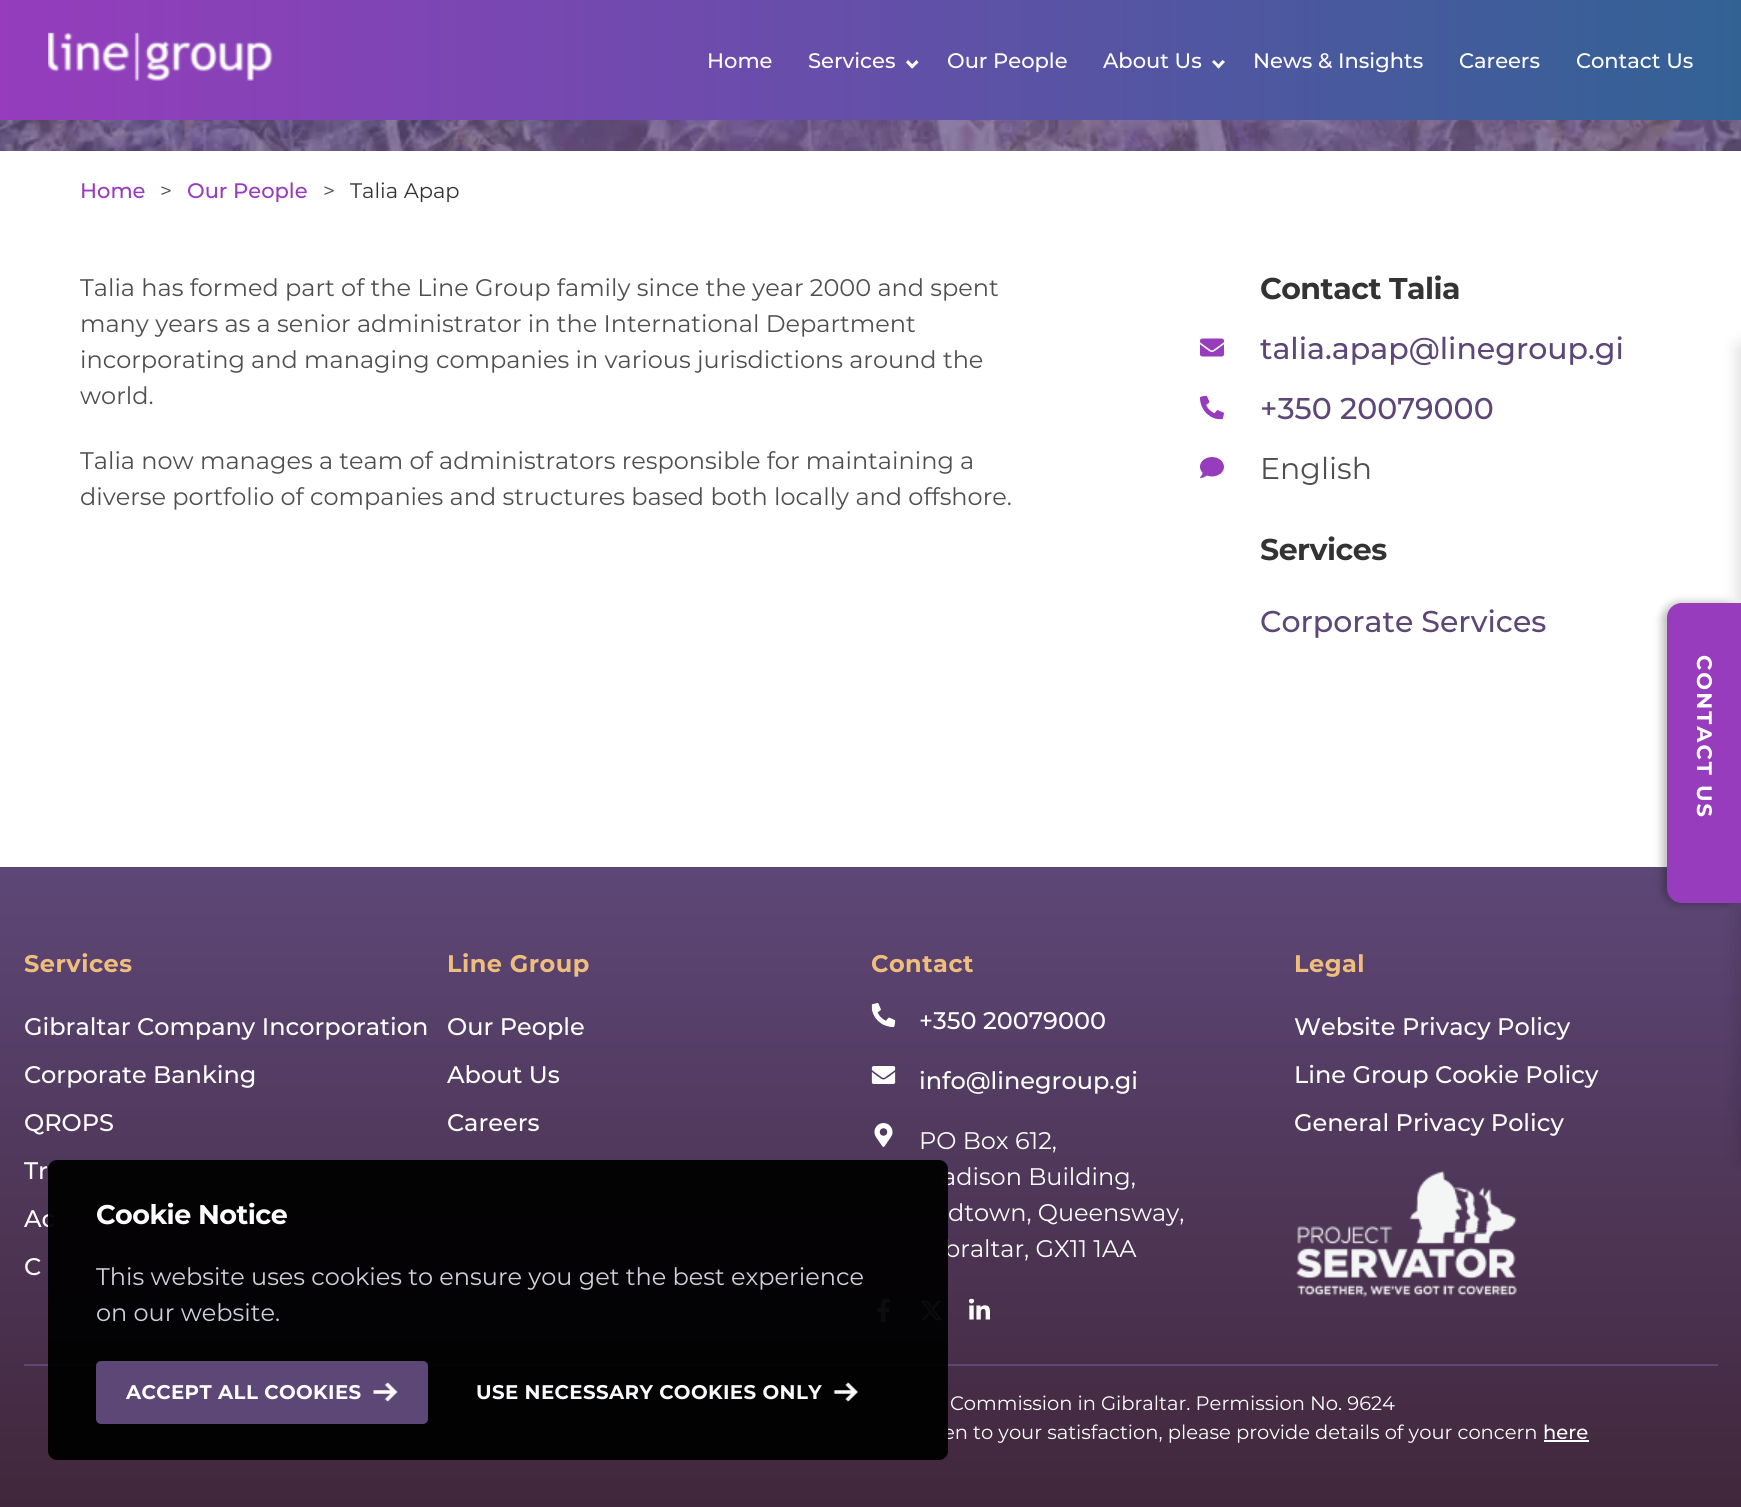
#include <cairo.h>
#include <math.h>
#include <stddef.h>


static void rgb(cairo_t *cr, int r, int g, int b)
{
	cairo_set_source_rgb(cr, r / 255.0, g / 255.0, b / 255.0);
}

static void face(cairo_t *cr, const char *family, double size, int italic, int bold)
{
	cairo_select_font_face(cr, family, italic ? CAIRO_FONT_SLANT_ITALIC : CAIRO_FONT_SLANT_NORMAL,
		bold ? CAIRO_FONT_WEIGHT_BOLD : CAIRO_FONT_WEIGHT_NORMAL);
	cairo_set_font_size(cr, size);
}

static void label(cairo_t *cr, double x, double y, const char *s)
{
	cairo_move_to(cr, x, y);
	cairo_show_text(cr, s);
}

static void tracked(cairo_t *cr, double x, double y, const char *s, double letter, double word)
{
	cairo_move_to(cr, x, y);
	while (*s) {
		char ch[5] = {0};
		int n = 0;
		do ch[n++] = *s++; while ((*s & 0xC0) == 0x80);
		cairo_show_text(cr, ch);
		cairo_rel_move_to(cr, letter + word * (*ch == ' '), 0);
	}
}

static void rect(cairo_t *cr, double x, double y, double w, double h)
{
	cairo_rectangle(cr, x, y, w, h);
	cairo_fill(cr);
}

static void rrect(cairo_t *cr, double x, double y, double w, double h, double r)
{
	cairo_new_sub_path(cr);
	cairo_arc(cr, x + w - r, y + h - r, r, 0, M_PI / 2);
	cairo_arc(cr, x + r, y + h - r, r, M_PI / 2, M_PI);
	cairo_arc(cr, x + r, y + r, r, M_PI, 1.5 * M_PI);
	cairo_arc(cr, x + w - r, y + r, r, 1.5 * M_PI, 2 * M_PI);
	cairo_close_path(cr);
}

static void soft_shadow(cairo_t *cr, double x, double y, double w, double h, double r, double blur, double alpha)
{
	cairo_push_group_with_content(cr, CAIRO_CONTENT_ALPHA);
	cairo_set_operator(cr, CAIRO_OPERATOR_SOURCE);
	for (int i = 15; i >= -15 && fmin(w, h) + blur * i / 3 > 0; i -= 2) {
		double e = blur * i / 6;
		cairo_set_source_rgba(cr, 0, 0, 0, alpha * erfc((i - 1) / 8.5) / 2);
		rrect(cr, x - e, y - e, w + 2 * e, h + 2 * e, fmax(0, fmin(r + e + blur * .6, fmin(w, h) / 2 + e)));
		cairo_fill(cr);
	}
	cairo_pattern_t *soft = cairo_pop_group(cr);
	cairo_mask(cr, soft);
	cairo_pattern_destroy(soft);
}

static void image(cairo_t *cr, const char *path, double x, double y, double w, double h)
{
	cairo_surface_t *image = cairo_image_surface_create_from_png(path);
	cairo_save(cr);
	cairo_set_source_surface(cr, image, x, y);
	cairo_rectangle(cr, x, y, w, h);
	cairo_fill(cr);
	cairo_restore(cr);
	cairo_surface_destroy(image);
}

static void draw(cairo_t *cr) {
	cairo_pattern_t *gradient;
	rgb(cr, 255, 255, 255);
	cairo_paint(cr);
	gradient = cairo_pattern_create_linear(0, 60, 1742, 60);
	cairo_pattern_add_color_stop_rgba(gradient, 0, 0.588, 0.235, 0.741, 1);
	cairo_pattern_add_color_stop_rgba(gradient, 1, 0.196, 0.384, 0.584, 1);
	cairo_set_source(cr, gradient);
	cairo_pattern_destroy(gradient);
	rect(cr, 0, 0, 1741, 120);
	image(cr, "image0.png", 48, 32, 225, 49);
	face(cr, "Montserrat Medium", 21, 0, 0);
	rgb(cr, 255, 255, 255);
	label(cr, 707, 68, "Home");
	label(cr, 808, 68, "Services");
	cairo_new_path(cr);
	cairo_move_to(cr, 918.5, 62.5);
	cairo_line_to(cr, 912, 68.5);
	cairo_line_to(cr, 910, 66.5);
	cairo_line_to(cr, 916.5, 60);
	cairo_close_path(cr);
	cairo_fill(cr);
	cairo_new_path(cr);
	cairo_move_to(cr, 914.5, 66.5);
	cairo_line_to(cr, 912, 68.5);
	cairo_line_to(cr, 906, 62.5);
	cairo_line_to(cr, 908, 60);
	cairo_close_path(cr);
	cairo_fill(cr);
	label(cr, 947, 68, "Our People");
	label(cr, 1103, 68, "About Us");
	cairo_new_path(cr);
	cairo_move_to(cr, 1225, 62);
	cairo_line_to(cr, 1218.5, 68.5);
	cairo_line_to(cr, 1216.5, 66.5);
	cairo_line_to(cr, 1222.5, 60);
	cairo_close_path(cr);
	cairo_fill(cr);
	cairo_new_path(cr);
	cairo_move_to(cr, 1220.5, 66.5);
	cairo_line_to(cr, 1218.5, 68.5);
	cairo_line_to(cr, 1212, 62);
	cairo_line_to(cr, 1214, 60);
	cairo_close_path(cr);
	cairo_fill(cr);
	label(cr, 1253, 68, "News & Insights");
	label(cr, 1459, 68, "Careers");
	label(cr, 1576, 68, "Contact Us");
	image(cr, "image1.png", 0, 120, 1741, 31);
	rgb(cr, 150, 60, 189);
	label(cr, 80, 198, "Home");
	face(cr, "Montserrat", 21, 0, 0);
	rgb(cr, 79, 79, 79);
	label(cr, 160, 198, ">");
	face(cr, "Montserrat Medium", 21, 0, 0);
	rgb(cr, 150, 60, 189);
	label(cr, 187, 198, "Our People");
	face(cr, "Montserrat", 21, 0, 0);
	rgb(cr, 79, 79, 79);
	label(cr, 323, 198, ">");
	rgb(cr, 51, 51, 51);
	label(cr, 350, 198, "Talia Apap");
	face(cr, "Montserrat", 24, 0, 0);
	rgb(cr, 79, 79, 79);
	label(cr, 80, 296, "Talia has formed part of the Line Group family since the year 2000 and spent");
	label(cr, 80, 332, "many years as a senior administrator in the International Department");
	label(cr, 80, 368, "incorporating and managing companies in various jurisdictions around the");
	label(cr, 80, 404, "world.");
	label(cr, 80, 469, "Talia now manages a team of administrators responsible for maintaining a");
	label(cr, 80, 505, "diverse portfolio of companies and structures based both locally and offshore.");
	face(cr, "Montserrat", 30, 0, 1);
	rgb(cr, 51, 51, 51);
	tracked(cr, 1260, 299, "Contact Talia", -0.5, 0);
	image(cr, "image2.png", 1200, 338, 24, 19);
	face(cr, "Montserrat Medium", 30, 0, 0);
	rgb(cr, 93, 71, 119);
	label(cr, 1260, 359, "talia.apap@linegroup.gi");
	image(cr, "image3.png", 1200, 395, 24, 25);
	label(cr, 1260, 419, "+350 20079000");
	image(cr, "image4.png", 1200, 457, 24, 21);
	face(cr, "Montserrat", 30, 0, 0);
	rgb(cr, 79, 79, 79);
	label(cr, 1260, 479, "English");
	face(cr, "Montserrat", 30, 0, 1);
	rgb(cr, 51, 51, 51);
	tracked(cr, 1260, 560, "Services", -0.5, 0);
	face(cr, "Montserrat Medium", 30, 0, 0);
	rgb(cr, 93, 71, 119);
	label(cr, 1260, 632, "Corporate Services");
	gradient = cairo_pattern_create_linear(871, 867, 871, 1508);
	cairo_pattern_add_color_stop_rgba(gradient, 0, 0.365, 0.278, 0.467, 1);
	cairo_pattern_add_color_stop_rgba(gradient, 1, 0.255, 0.153, 0.231, 1);
	cairo_set_source(cr, gradient);
	cairo_pattern_destroy(gradient);
	rect(cr, 0, 867, 1741, 640);
	face(cr, "Montserrat", 24, 0, 1);
	rgb(cr, 239, 190, 125);
	tracked(cr, 24, 972, "Services", 0.5, 0);
	face(cr, "Montserrat Medium", 24, 0, 0);
	rgb(cr, 255, 255, 255);
	label(cr, 24, 1035, "Gibraltar Company Incorporation");
	label(cr, 24, 1083, "Corporate Banking");
	label(cr, 24, 1131, "QROPS");
	label(cr, 24, 1179, "Tr");
	label(cr, 24, 1227, "Ac");
	label(cr, 24, 1275, "C");
	face(cr, "Montserrat", 24, 0, 1);
	rgb(cr, 239, 190, 125);
	tracked(cr, 447, 972, "Line Group", 0.5, 0);
	face(cr, "Montserrat Medium", 24, 0, 0);
	rgb(cr, 255, 255, 255);
	label(cr, 447, 1035, "Our People");
	label(cr, 447, 1083, "About Us");
	label(cr, 447, 1131, "Careers");
	face(cr, "Montserrat", 24, 0, 1);
	rgb(cr, 239, 190, 125);
	tracked(cr, 871, 972, "Contact", 0.5, 0);
	image(cr, "image5.png", 871, 1003, 25, 24);
	face(cr, "Montserrat Medium", 24, 0, 0);
	rgb(cr, 255, 255, 255);
	label(cr, 919, 1029, "+350 20079000");
	image(cr, "image6.png", 871, 1066, 25, 18);
	label(cr, 919, 1089, "info@linegroup.gi");
	image(cr, "image7.png", 874, 1123, 19, 24);
	face(cr, "Montserrat", 24, 0, 0);
	label(cr, 919, 1149, "PO Box 612,");
	label(cr, 942, 1185, "adison Building,");
	label(cr, 948, 1221, "dtown, Queensway,");
	label(cr, 944, 1257, "braltar, GX11 1AA");
	image(cr, "image8.png", 877, 1298, 13, 25);
	image(cr, "image9.png", 920, 1300, 23, 21);
	image(cr, "image10.png", 969, 1298, 21, 22);
	face(cr, "Montserrat", 24, 0, 1);
	rgb(cr, 239, 190, 125);
	tracked(cr, 1294, 972, "Legal", 0.5, 0);
	face(cr, "Montserrat Medium", 24, 0, 0);
	rgb(cr, 255, 255, 255);
	label(cr, 1294, 1035, "Website Privacy Policy");
	label(cr, 1294, 1083, "Line Group Cookie Policy");
	label(cr, 1294, 1131, "General Privacy Policy");
	image(cr, "image11.png", 1295, 1171, 222, 126);
	rgb(cr, 93, 71, 119);
	rect(cr, 24, 1364, 1694, 2);
	face(cr, "Montserrat", 19.5, 0, 0);
	rgb(cr, 255, 255, 255);
	label(cr, 950, 1410, "Commission in Gibraltar. Permission No. 9624");
	label(cr, 943, 1439, "en to your satisfaction, please provide details of your concern");
	face(cr, "Montserrat Medium", 19.5, 0, 0);
	label(cr, 1543, 1439, "here");
	rect(cr, 1544, 1440, 45, 2);
	rgb(cr, 0, 0, 0);
	soft_shadow(cr, 1739, 347, 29, 814, 0, 9, 0.15);
	soft_shadow(cr, 1662, 602, 78, 303, 17, 4, 0.25);
	rgb(cr, 150, 60, 189);
	cairo_new_path(cr);
	cairo_move_to(cr, 1682, 603);
	cairo_line_to(cr, 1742, 603);
	cairo_line_to(cr, 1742, 903);
	cairo_line_to(cr, 1682, 903);
	cairo_curve_to(cr, 1673.5, 903, 1667, 896.5, 1667, 888);
	cairo_line_to(cr, 1667, 618);
	cairo_curve_to(cr, 1667, 609.5, 1673.5, 603, 1682, 603);
	cairo_close_path(cr);
	cairo_fill(cr);
	face(cr, "Montserrat", 21, 0, 1);
	rgb(cr, 255, 255, 255);
	cairo_save(cr);
	cairo_translate(cr, 1697, 655);
	cairo_rotate(cr, 90 * M_PI / 180);
	tracked(cr, 0, 0, "CONTACT US", 2.1, 0);
	cairo_restore(cr);
	cairo_set_source_rgba(cr, 0, 0, 0, 0.95);
	rrect(cr, 48, 1160, 900, 300, 9);
	cairo_fill(cr);
	face(cr, "Montserrat", 27, 0, 1);
	rgb(cr, 255, 255, 255);
	tracked(cr, 96, 1224, "Cookie Notice", -0.5, 0);
	face(cr, "Montserrat", 24, 0, 0);
	rgb(cr, 206, 209, 220);
	label(cr, 96, 1285, "This website uses cookies to ensure you get the best experience");
	label(cr, 96, 1321, "on our website.");
	rgb(cr, 93, 71, 119);
	rrect(cr, 96, 1361, 332, 63, 5);
	cairo_fill(cr);
	face(cr, "Montserrat", 19.75, 0, 1);
	rgb(cr, 255, 255, 255);
	tracked(cr, 126, 1399, "ACCEPT ALL COOKIES", 0.4, 0);
	image(cr, "image12.png", 373, 1382, 25, 20);
	rgb(cr, 249, 250, 251);
	tracked(cr, 476, 1399, "USE NECESSARY COOKIES ONLY", 0.4, 0);
	image(cr, "image13.png", 833, 1382, 25, 20);
}

int main(void) {
	cairo_surface_t *surface = cairo_image_surface_create(CAIRO_FORMAT_RGB24, 1741, 1507);
	cairo_t *cr = cairo_create(surface);
	cairo_font_options_t *options = cairo_font_options_create();
	cairo_font_options_set_hint_metrics(options, CAIRO_HINT_METRICS_OFF);
	cairo_font_options_set_hint_style(options, CAIRO_HINT_STYLE_NONE);
	cairo_set_font_options(cr, options);
	cairo_set_miter_limit(cr, 4);
	draw(cr);
	cairo_surface_write_to_png(surface, "render.png");
	cairo_font_options_destroy(options);
	cairo_destroy(cr);
	cairo_surface_destroy(surface);
	return 0;
}
